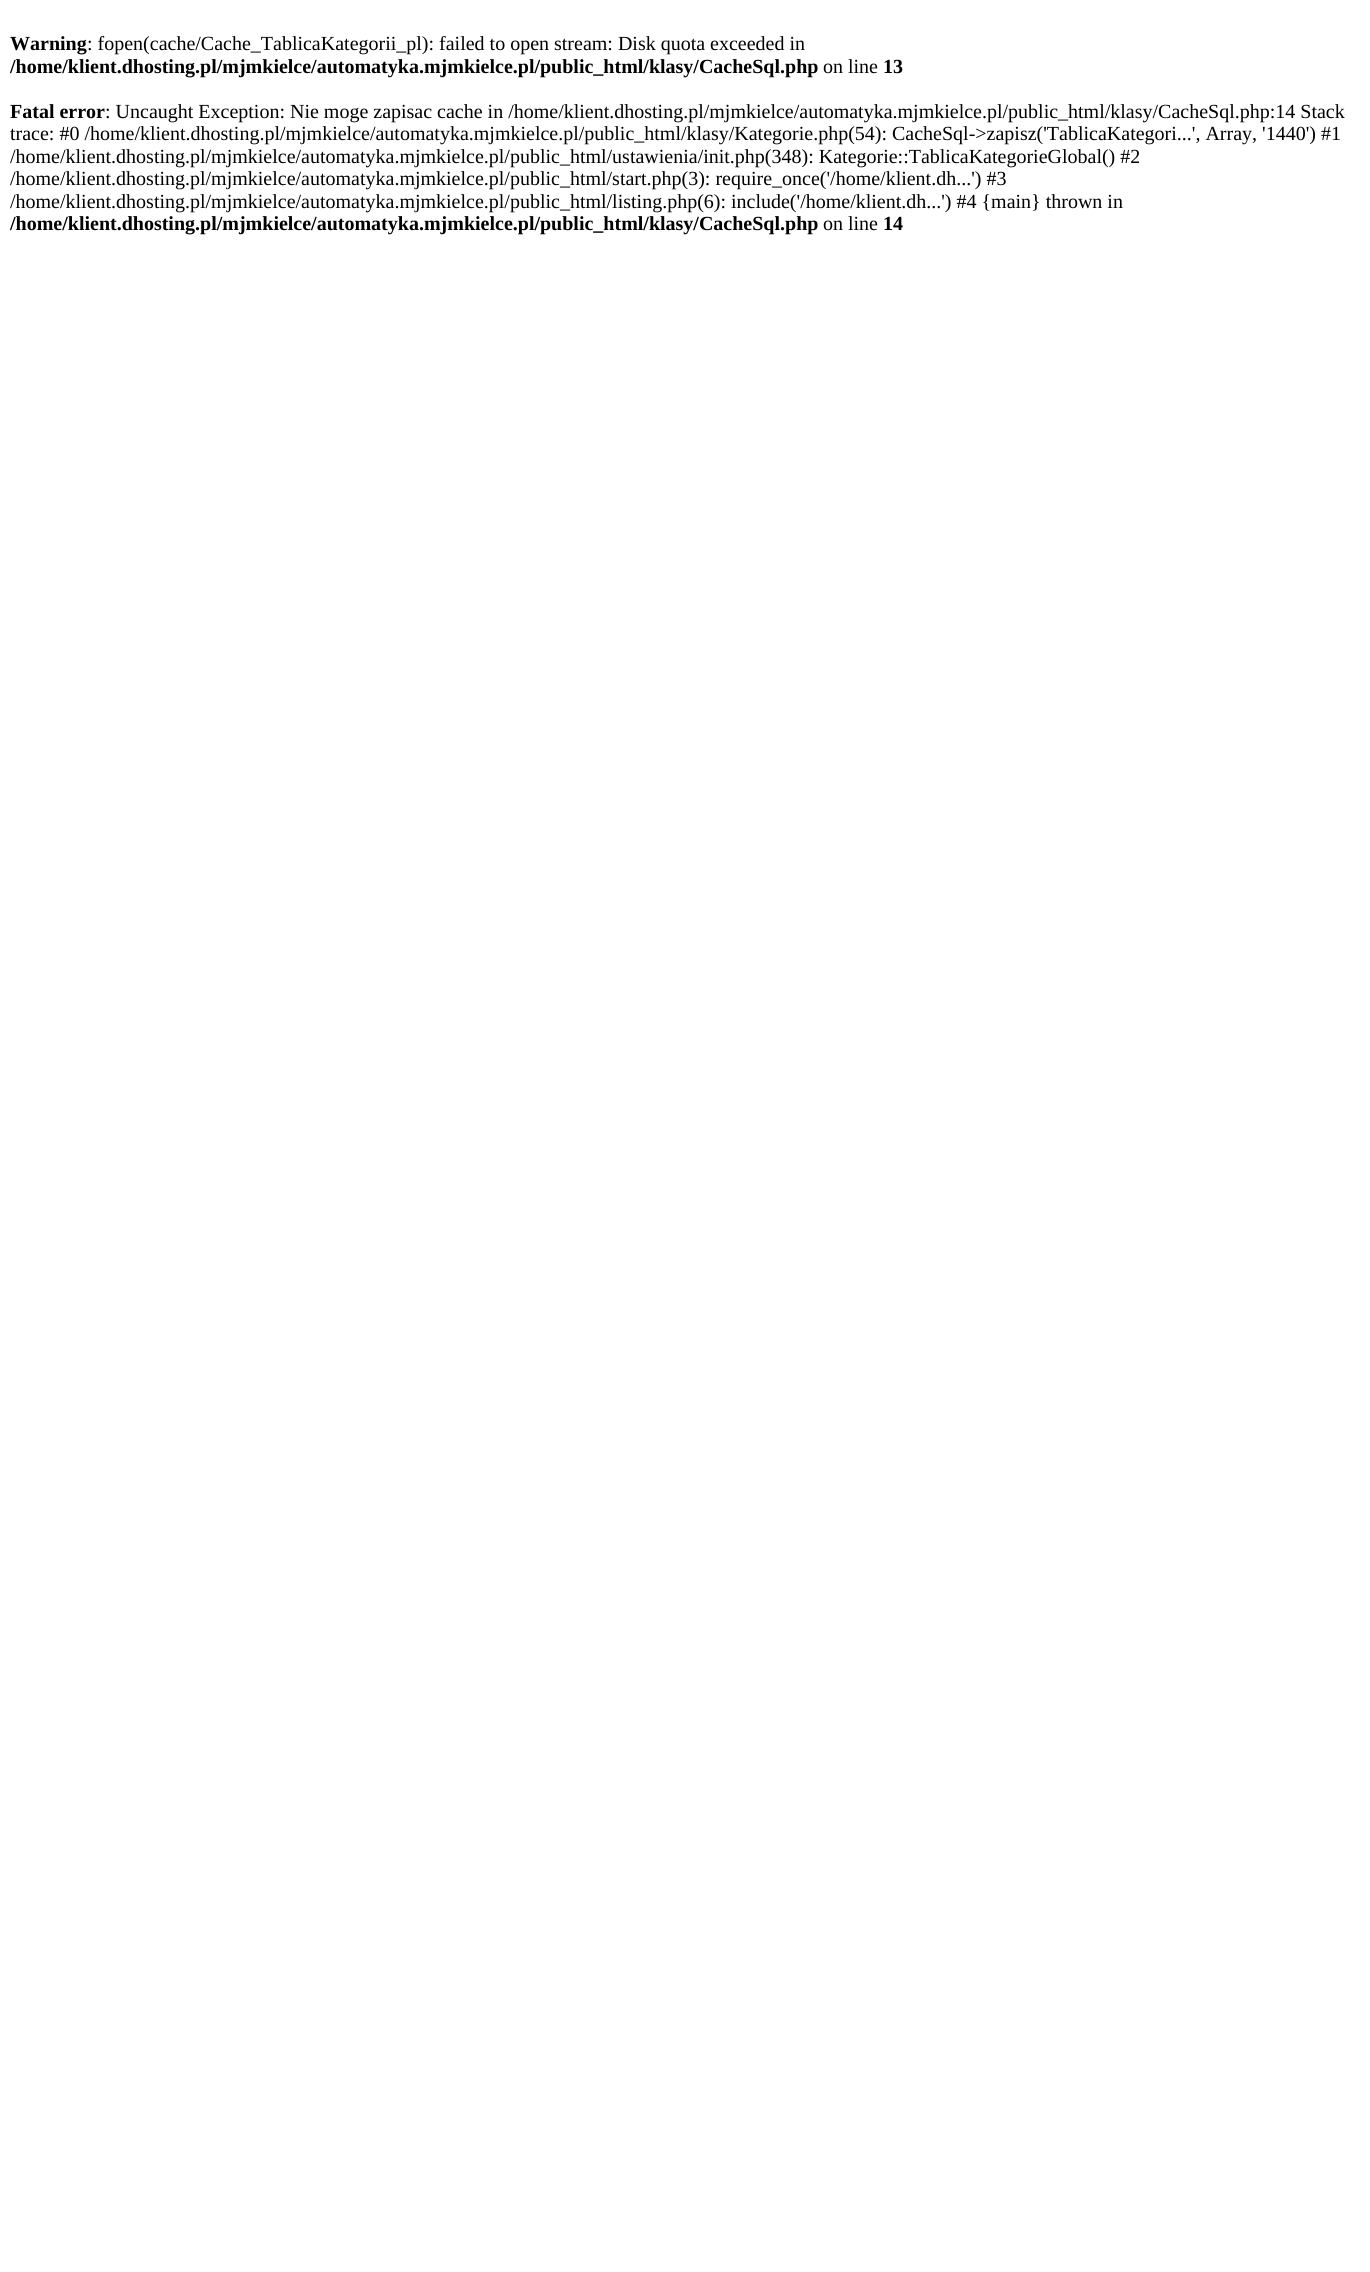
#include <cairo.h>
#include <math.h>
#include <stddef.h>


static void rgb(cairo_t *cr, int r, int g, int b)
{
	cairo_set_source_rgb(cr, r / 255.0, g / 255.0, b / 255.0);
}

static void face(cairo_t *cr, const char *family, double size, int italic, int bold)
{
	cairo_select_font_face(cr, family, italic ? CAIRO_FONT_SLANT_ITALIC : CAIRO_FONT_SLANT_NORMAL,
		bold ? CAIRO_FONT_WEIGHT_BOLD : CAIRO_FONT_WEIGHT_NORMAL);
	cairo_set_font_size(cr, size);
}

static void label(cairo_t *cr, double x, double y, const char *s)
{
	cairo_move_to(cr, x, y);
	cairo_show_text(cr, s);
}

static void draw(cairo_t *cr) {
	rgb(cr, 255, 255, 255);
	cairo_paint(cr);
	face(cr, "Liberation Serif", 20, 0, 1);
	rgb(cr, 0, 0, 0);
	label(cr, 10, 50, "Warning");
	face(cr, "Liberation Serif", 20, 0, 0);
	label(cr, 87, 50, ": fopen(cache/Cache_TablicaKategorii_pl): failed to open stream: Disk quota exceeded in");
	face(cr, "Liberation Serif", 20, 0, 1);
	label(cr, 10, 73, "/home/klient.dhosting.pl/mjmkielce/automatyka.mjmkielce.pl/public_html/klasy/CacheSql.php");
	face(cr, "Liberation Serif", 20, 0, 0);
	label(cr, 823, 73, "on line");
	face(cr, "Liberation Serif", 20, 0, 1);
	label(cr, 883, 73, "13");
	label(cr, 10, 118, "Fatal error");
	face(cr, "Liberation Serif", 20, 0, 0);
	label(cr, 105, 118, ": Uncaught Exception: Nie moge zapisac cache in /home/klient.dhosting.pl/mjmkielce/automatyka.mjmkielce.pl/public_html/klasy/CacheSql.php:14 Stack");
	label(cr, 10, 140, "trace: #0 /home/klient.dhosting.pl/mjmkielce/automatyka.mjmkielce.pl/public_html/klasy/Kategorie.php(54): CacheSql->zapisz('TablicaKategori...', Array, '1440') #1");
	label(cr, 10, 163, "/home/klient.dhosting.pl/mjmkielce/automatyka.mjmkielce.pl/public_html/ustawienia/init.php(348): Kategorie::TablicaKategorieGlobal() #2");
	label(cr, 10, 185, "/home/klient.dhosting.pl/mjmkielce/automatyka.mjmkielce.pl/public_html/start.php(3): require_once('/home/klient.dh...') #3");
	label(cr, 10, 208, "/home/klient.dhosting.pl/mjmkielce/automatyka.mjmkielce.pl/public_html/listing.php(6): include('/home/klient.dh...') #4 {main} thrown in");
	face(cr, "Liberation Serif", 20, 0, 1);
	label(cr, 10, 230, "/home/klient.dhosting.pl/mjmkielce/automatyka.mjmkielce.pl/public_html/klasy/CacheSql.php");
	face(cr, "Liberation Serif", 20, 0, 0);
	label(cr, 823, 230, "on line");
	face(cr, "Liberation Serif", 20, 0, 1);
	label(cr, 883, 230, "14");
}

int main(void) {
	cairo_surface_t *surface = cairo_image_surface_create(CAIRO_FORMAT_RGB24, 1370, 2272);
	cairo_t *cr = cairo_create(surface);
	cairo_font_options_t *options = cairo_font_options_create();
	cairo_font_options_set_hint_metrics(options, CAIRO_HINT_METRICS_OFF);
	cairo_font_options_set_hint_style(options, CAIRO_HINT_STYLE_NONE);
	cairo_set_font_options(cr, options);
	cairo_set_miter_limit(cr, 4);
	draw(cr);
	cairo_surface_write_to_png(surface, "render.png");
	cairo_font_options_destroy(options);
	cairo_destroy(cr);
	cairo_surface_destroy(surface);
	return 0;
}
